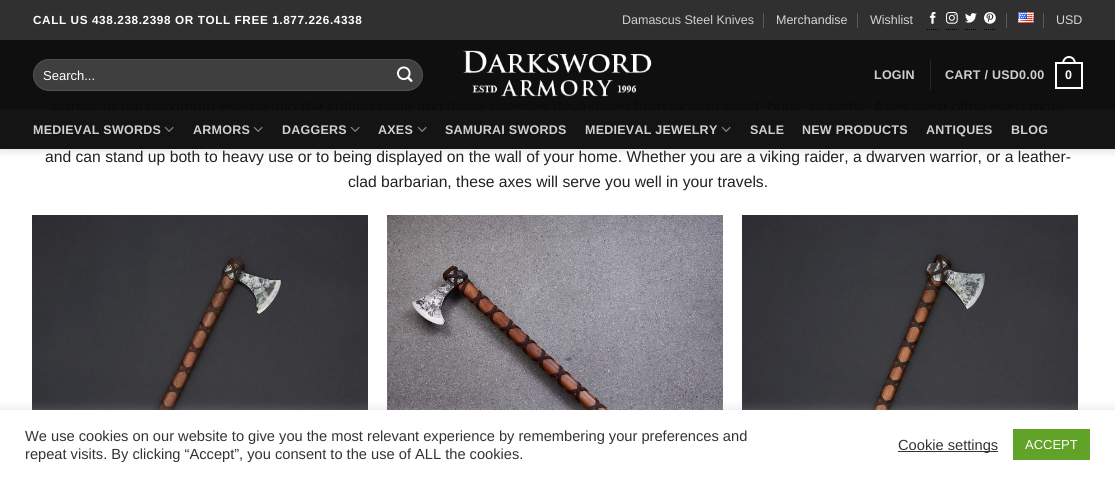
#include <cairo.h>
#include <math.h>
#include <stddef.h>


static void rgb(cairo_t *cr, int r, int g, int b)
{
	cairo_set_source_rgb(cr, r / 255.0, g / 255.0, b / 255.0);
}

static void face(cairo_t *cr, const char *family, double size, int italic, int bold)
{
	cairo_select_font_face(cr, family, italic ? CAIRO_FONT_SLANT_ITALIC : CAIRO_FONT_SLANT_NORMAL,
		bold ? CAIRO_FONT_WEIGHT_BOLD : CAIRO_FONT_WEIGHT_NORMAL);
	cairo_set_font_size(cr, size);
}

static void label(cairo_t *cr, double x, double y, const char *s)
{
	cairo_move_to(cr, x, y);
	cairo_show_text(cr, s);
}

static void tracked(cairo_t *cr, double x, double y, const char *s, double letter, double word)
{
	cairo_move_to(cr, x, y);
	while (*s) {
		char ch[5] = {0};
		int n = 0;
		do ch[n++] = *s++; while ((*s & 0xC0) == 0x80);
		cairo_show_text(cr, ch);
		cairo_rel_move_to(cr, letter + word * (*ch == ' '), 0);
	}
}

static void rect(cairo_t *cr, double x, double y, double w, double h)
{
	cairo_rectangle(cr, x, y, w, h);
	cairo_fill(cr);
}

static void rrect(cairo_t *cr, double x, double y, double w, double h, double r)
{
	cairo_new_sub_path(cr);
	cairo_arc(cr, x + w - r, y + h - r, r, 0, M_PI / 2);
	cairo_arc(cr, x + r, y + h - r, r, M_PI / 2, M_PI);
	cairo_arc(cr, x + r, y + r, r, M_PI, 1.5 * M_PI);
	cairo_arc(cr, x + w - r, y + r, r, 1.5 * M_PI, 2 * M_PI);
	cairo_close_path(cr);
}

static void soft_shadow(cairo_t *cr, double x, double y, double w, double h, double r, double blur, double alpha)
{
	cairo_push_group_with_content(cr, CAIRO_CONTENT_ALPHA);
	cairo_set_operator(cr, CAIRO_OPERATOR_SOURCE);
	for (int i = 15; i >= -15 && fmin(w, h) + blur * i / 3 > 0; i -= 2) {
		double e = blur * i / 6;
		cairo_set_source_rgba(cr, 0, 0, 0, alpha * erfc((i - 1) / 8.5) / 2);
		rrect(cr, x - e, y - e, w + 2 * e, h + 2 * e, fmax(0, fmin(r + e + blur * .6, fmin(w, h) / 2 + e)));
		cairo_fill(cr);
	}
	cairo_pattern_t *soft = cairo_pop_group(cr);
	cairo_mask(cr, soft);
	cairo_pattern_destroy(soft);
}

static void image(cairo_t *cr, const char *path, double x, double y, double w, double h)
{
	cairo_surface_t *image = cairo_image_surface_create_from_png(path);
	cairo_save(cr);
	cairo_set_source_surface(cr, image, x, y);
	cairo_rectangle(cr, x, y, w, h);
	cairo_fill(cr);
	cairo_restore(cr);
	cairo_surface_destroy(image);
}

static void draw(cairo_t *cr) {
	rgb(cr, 255, 255, 255);
	cairo_paint(cr);
	rgb(cr, 15, 15, 15);
	rect(cr, 0, 40, 1115, 70);
	rgb(cr, 48, 48, 48);
	rect(cr, 0, 0, 1115, 40);
	cairo_save(cr);
	cairo_rectangle(cr, 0, 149, 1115, 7);
	cairo_clip(cr);
	rgb(cr, 0, 0, 0);
	soft_shadow(cr, 1, 1, 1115, 149, 0, 5, 0.15);
	cairo_restore(cr);
	face(cr, "Liberation Sans", 11.75, 0, 1);
	rgb(cr, 255, 255, 255);
	tracked(cr, 33, 24, "CALL US 438.238.2398 OR TOLL FREE 1.877.226.4338", 0.6, 0);
	face(cr, "Liberation Sans", 12.5, 0, 0);
	rgb(cr, 208, 208, 208);
	label(cr, 622, 24, "Damascus Steel Knives");
	rgb(cr, 90, 90, 90);
	rect(cr, 763, 13, 1, 15);
	rgb(cr, 214, 214, 214);
	label(cr, 776, 24, "Merchandise");
	rgb(cr, 90, 90, 90);
	rect(cr, 857, 13, 1, 15);
	rgb(cr, 214, 214, 214);
	label(cr, 870, 24, "Wishlist");
	cairo_new_path(cr);
	cairo_move_to(cr, 927, 29.5);
	cairo_line_to(cr, 939, 29.5);
	rgb(cr, 0, 0, 0);
	cairo_set_line_width(cr, 1);
	cairo_set_dash(cr, (double[]){1, 1}, 2, 0);
	cairo_stroke(cr);
	image(cr, "image0.png", 929, 12, 7, 12);
	cairo_new_path(cr);
	cairo_move_to(cr, 946, 29.5);
	cairo_line_to(cr, 958, 29.5);
	cairo_stroke(cr);
	image(cr, "image1.png", 946, 12, 12, 12);
	cairo_new_path(cr);
	cairo_move_to(cr, 965, 29.5);
	cairo_line_to(cr, 977, 29.5);
	cairo_stroke(cr);
	image(cr, "image2.png", 965, 13, 12, 10);
	cairo_new_path(cr);
	cairo_move_to(cr, 984, 29.5);
	cairo_line_to(cr, 995, 29.5);
	cairo_stroke(cr);
	image(cr, "image3.png", 984, 12, 12, 12);
	rgb(cr, 90, 90, 90);
	rect(cr, 1006, 13, 1, 15);
	image(cr, "image4.png", 1018, 12, 16, 11);
	rect(cr, 1043, 13, 1, 15);
	rgb(cr, 214, 214, 214);
	label(cr, 1056, 24, "USD");
	cairo_set_source_rgba(cr, 1, 1, 1, 0.2);
	rrect(cr, 33, 59, 390, 32, 16);
	cairo_fill(cr);
	rrect(cr, 33.5, 59.5, 389, 31, 15.5);
	cairo_set_source_rgba(cr, 1, 1, 1, 0.09);
	cairo_set_dash(cr, NULL, 0, 0);
	cairo_stroke(cr);
	face(cr, "Liberation Sans", 13, 0, 0);
	rgb(cr, 255, 255, 255);
	label(cr, 43, 80, "Search...");
	image(cr, "image5.png", 397, 66, 16, 16);
	image(cr, "image6.png", 463, 50, 189, 47);
	face(cr, "Liberation Sans", 12.5, 0, 1);
	rgb(cr, 208, 208, 208);
	tracked(cr, 874, 79, "LOGIN", 0.25, 0);
	rgb(cr, 39, 39, 39);
	rect(cr, 930, 60, 1, 30);
	rgb(cr, 208, 208, 208);
	tracked(cr, 945, 79, "CART / USD0.00", 0.25, 0);
	cairo_rectangle(cr, 1056, 63, 26, 25);
	rgb(cr, 255, 255, 255);
	cairo_set_line_width(cr, 2);
	cairo_stroke(cr);
	cairo_set_fill_rule(cr, CAIRO_FILL_RULE_EVEN_ODD);
	cairo_new_path(cr);
	cairo_move_to(cr, 1069, 56);
	cairo_curve_to(cr, 1073.5, 56, 1076, 60, 1076, 64);
	cairo_line_to(cr, 1062, 64);
	cairo_curve_to(cr, 1062, 60, 1064.5, 56, 1069, 56);
	cairo_close_path(cr);
	cairo_move_to(cr, 1069, 58);
	cairo_curve_to(cr, 1072.5, 58, 1074, 61, 1074, 64);
	cairo_line_to(cr, 1064, 64);
	cairo_curve_to(cr, 1064, 61, 1065.5, 58, 1069, 58);
	cairo_close_path(cr);
	cairo_fill(cr);
	tracked(cr, 1065, 79, "0", 0.25, 0);
	face(cr, "Liberation Sans", 15.68, 0, 0);
	rgb(cr, 10, 10, 10);
	label(cr, 51, 112, "warrior to put maximum energy into the cutting edge and leave enemies devastated from blow to head, body, or limbs. Axes were often even more");
	rgb(cr, 20, 20, 20);
	rect(cr, 0, 110, 1115, 39);
	face(cr, "Liberation Sans", 12.5, 0, 1);
	rgb(cr, 208, 208, 208);
	tracked(cr, 33, 134, "MEDIEVAL SWORDS", 0.25, 0);
	image(cr, "image7.png", 164, 126, 10, 6);
	tracked(cr, 193, 134, "ARMORS", 0.25, 0);
	image(cr, "image7.png", 253, 126, 10, 6);
	tracked(cr, 282, 134, "DAGGERS", 0.25, 0);
	image(cr, "image7.png", 350, 126, 10, 6);
	tracked(cr, 378, 134, "AXES", 0.25, 0);
	image(cr, "image7.png", 417, 126, 10, 6);
	tracked(cr, 445, 134, "SAMURAI SWORDS", 0.25, 0);
	tracked(cr, 585, 134, "MEDIEVAL JEWELRY", 0.25, 0);
	image(cr, "image7.png", 721, 126, 10, 6);
	tracked(cr, 750, 134, "SALE", 0.25, 0);
	tracked(cr, 802, 134, "NEW PRODUCTS", 0.25, 0);
	tracked(cr, 926, 134, "ANTIQUES", 0.25, 0);
	tracked(cr, 1011, 134, "BLOG", 0.25, 0);
	face(cr, "Liberation Sans", 15.68, 0, 0);
	rgb(cr, 33, 33, 33);
	label(cr, 45, 162, "and can stand up both to heavy use or to being displayed on the wall of your home. Whether you are a viking raider, a dwarven warrior, or a leather-");
	label(cr, 348, 187, "clad barbarian, these axes will serve you well in your travels.");
	image(cr, "image8.png", 32, 215, 336, 195);
	image(cr, "image9.png", 387, 215, 336, 195);
	image(cr, "image10.png", 742, 215, 336, 195);
	rgb(cr, 172, 171, 171);
	soft_shadow(cr, 0, 409, 1115, 69, 0, 5, 0.3);
	rgb(cr, 255, 255, 255);
	rect(cr, 0, 410, 1115, 69);
	face(cr, "Liberation Sans", 14.65, 0, 0);
	rgb(cr, 51, 51, 51);
	label(cr, 25, 441, "We use cookies on our website to give you the most relevant experience by remembering your preferences and");
	label(cr, 25, 459, "repeat visits. By clicking “Accept”, you consent to the use of ALL the cookies.");
	rect(cr, 898, 451, 100, 1);
	label(cr, 898, 450, "Cookie settings");
	rgb(cr, 97, 162, 41);
	rect(cr, 1013, 429, 77, 31);
	face(cr, "Liberation Sans", 13, 0, 0);
	rgb(cr, 255, 255, 255);
	label(cr, 1025, 449, "ACCEPT");
}

int main(void) {
	cairo_surface_t *surface = cairo_image_surface_create(CAIRO_FORMAT_RGB24, 1115, 479);
	cairo_t *cr = cairo_create(surface);
	cairo_font_options_t *options = cairo_font_options_create();
	cairo_font_options_set_hint_metrics(options, CAIRO_HINT_METRICS_OFF);
	cairo_font_options_set_hint_style(options, CAIRO_HINT_STYLE_NONE);
	cairo_set_font_options(cr, options);
	cairo_set_miter_limit(cr, 4);
	draw(cr);
	cairo_surface_write_to_png(surface, "render.png");
	cairo_font_options_destroy(options);
	cairo_destroy(cr);
	cairo_surface_destroy(surface);
	return 0;
}
